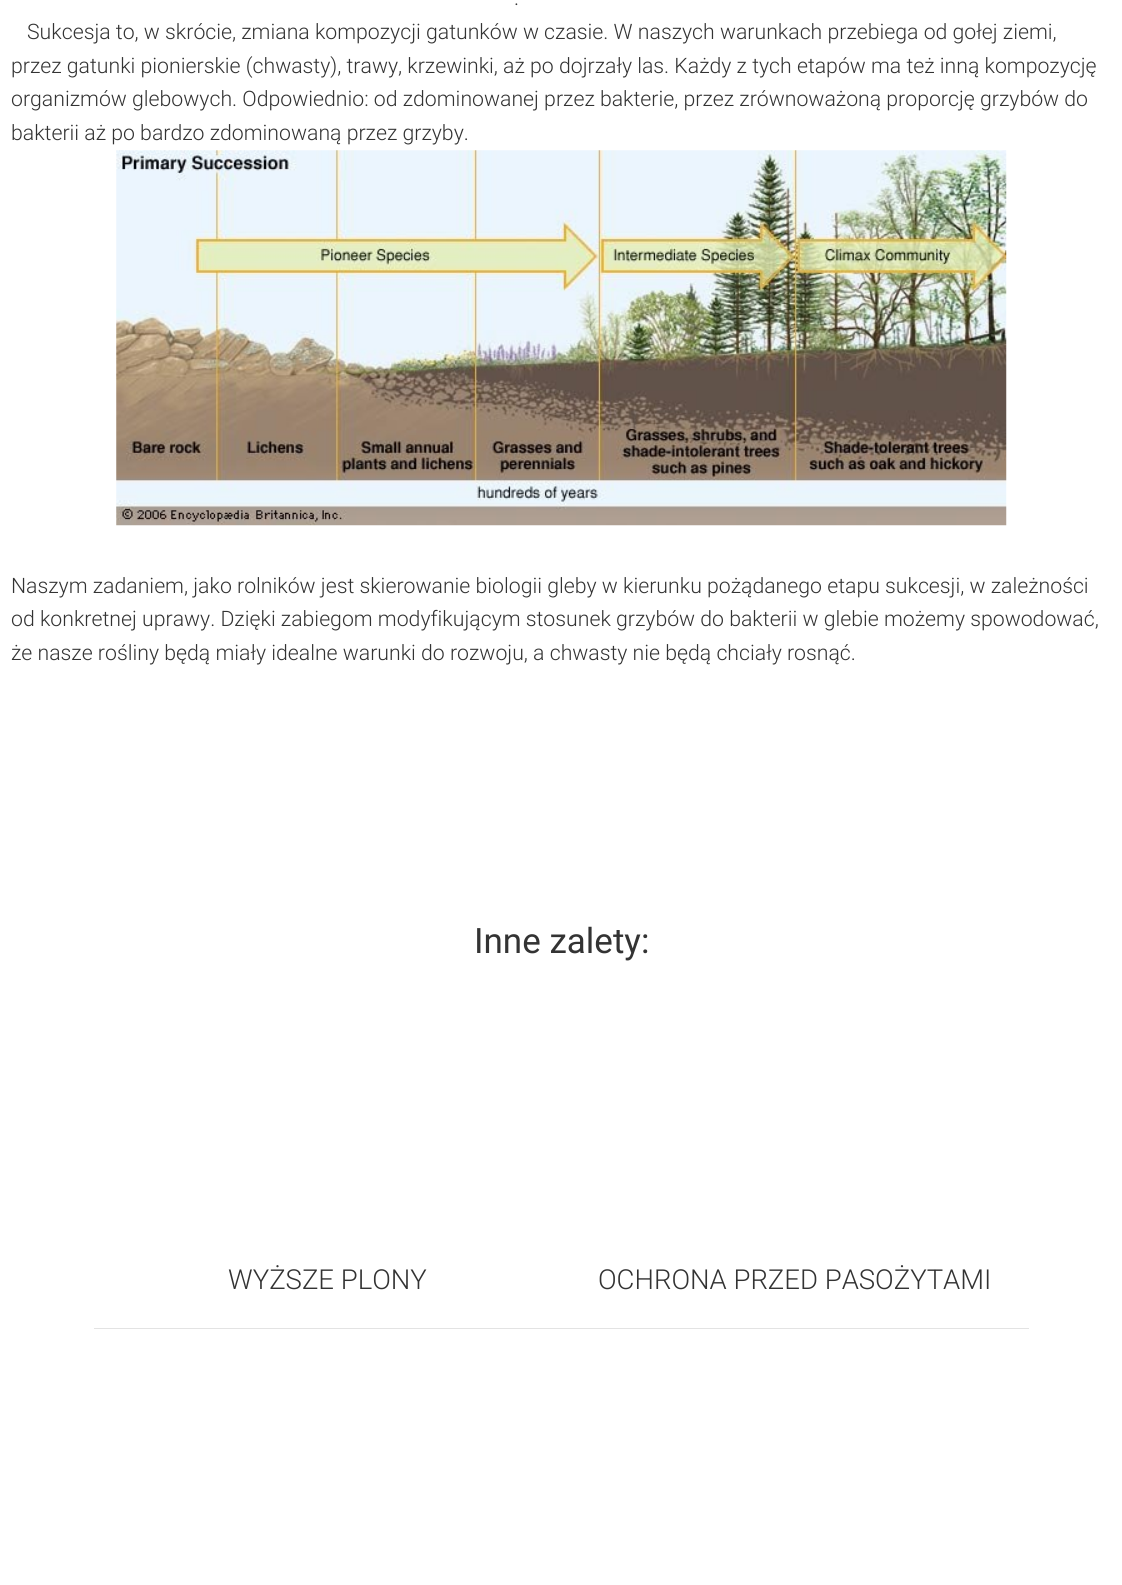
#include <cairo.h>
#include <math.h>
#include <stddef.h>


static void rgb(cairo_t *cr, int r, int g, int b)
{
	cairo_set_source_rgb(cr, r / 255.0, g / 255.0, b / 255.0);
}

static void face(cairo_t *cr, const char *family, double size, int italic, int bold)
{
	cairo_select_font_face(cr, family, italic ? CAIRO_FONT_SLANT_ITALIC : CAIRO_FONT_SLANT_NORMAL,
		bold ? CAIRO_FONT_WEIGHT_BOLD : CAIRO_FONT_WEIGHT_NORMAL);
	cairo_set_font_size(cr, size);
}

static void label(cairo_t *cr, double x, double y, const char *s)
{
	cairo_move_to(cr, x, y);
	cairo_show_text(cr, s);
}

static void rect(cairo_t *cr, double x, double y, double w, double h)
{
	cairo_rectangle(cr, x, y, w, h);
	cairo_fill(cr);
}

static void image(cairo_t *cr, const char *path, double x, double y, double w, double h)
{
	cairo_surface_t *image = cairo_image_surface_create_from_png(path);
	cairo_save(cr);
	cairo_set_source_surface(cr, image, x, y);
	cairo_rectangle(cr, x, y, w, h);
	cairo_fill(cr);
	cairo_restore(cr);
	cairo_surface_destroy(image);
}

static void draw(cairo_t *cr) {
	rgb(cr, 255, 255, 255);
	cairo_paint(cr);
	face(cr, "Roboto Light", 21.25, 0, 0);
	rgb(cr, 51, 51, 51);
	label(cr, 514, 5, ".");
	label(cr, 27, 39, "Sukcesja to, w skrócie, zmiana kompozycji gatunków w czasie. W naszych warunkach przebiega od gołej ziemi,");
	label(cr, 11, 73, "przez gatunki pionierskie (chwasty), trawy, krzewinki, aż po dojrzały las. Każdy z tych etapów ma też inną kompozycję");
	label(cr, 11, 106, "organizmów glebowych. Odpowiednio: od zdominowanej przez bakterie, przez zrównoważoną proporcję grzybów do");
	label(cr, 11, 140, "bakterii aż po bardzo zdominowaną przez grzyby.");
	image(cr, "image0.png", 116, 150, 891, 376);
	label(cr, 11, 593, "Naszym zadaniem, jako rolników jest skierowanie biologii gleby w kierunku pożądanego etapu sukcesji, w zależności");
	label(cr, 11, 626, "od konkretnej uprawy. Dzięki zabiegom modyfikującym stosunek grzybów do bakterii w glebie możemy spowodować,");
	label(cr, 11, 660, "że nasze rośliny będą miały idealne warunki do rozwoju, a chwasty nie będą chciały rosnąć.");
	face(cr, "Roboto", 35, 0, 0);
	label(cr, 474, 953, "Inne zalety:");
	rgb(cr, 227, 227, 227);
	rect(cr, 94, 1328, 935, 1);
	face(cr, "Roboto Light", 27.5, 0, 0);
	rgb(cr, 51, 51, 51);
	label(cr, 228, 1289, "WYŻSZE PLONY");
	label(cr, 598, 1289, "OCHRONA PRZED PASOŻYTAMI");
}

int main(void) {
	cairo_surface_t *surface = cairo_image_surface_create(CAIRO_FORMAT_RGB24, 1122, 1585);
	cairo_t *cr = cairo_create(surface);
	cairo_font_options_t *options = cairo_font_options_create();
	cairo_font_options_set_hint_metrics(options, CAIRO_HINT_METRICS_OFF);
	cairo_font_options_set_hint_style(options, CAIRO_HINT_STYLE_NONE);
	cairo_set_font_options(cr, options);
	cairo_set_miter_limit(cr, 4);
	draw(cr);
	cairo_surface_write_to_png(surface, "render.png");
	cairo_font_options_destroy(options);
	cairo_destroy(cr);
	cairo_surface_destroy(surface);
	return 0;
}
